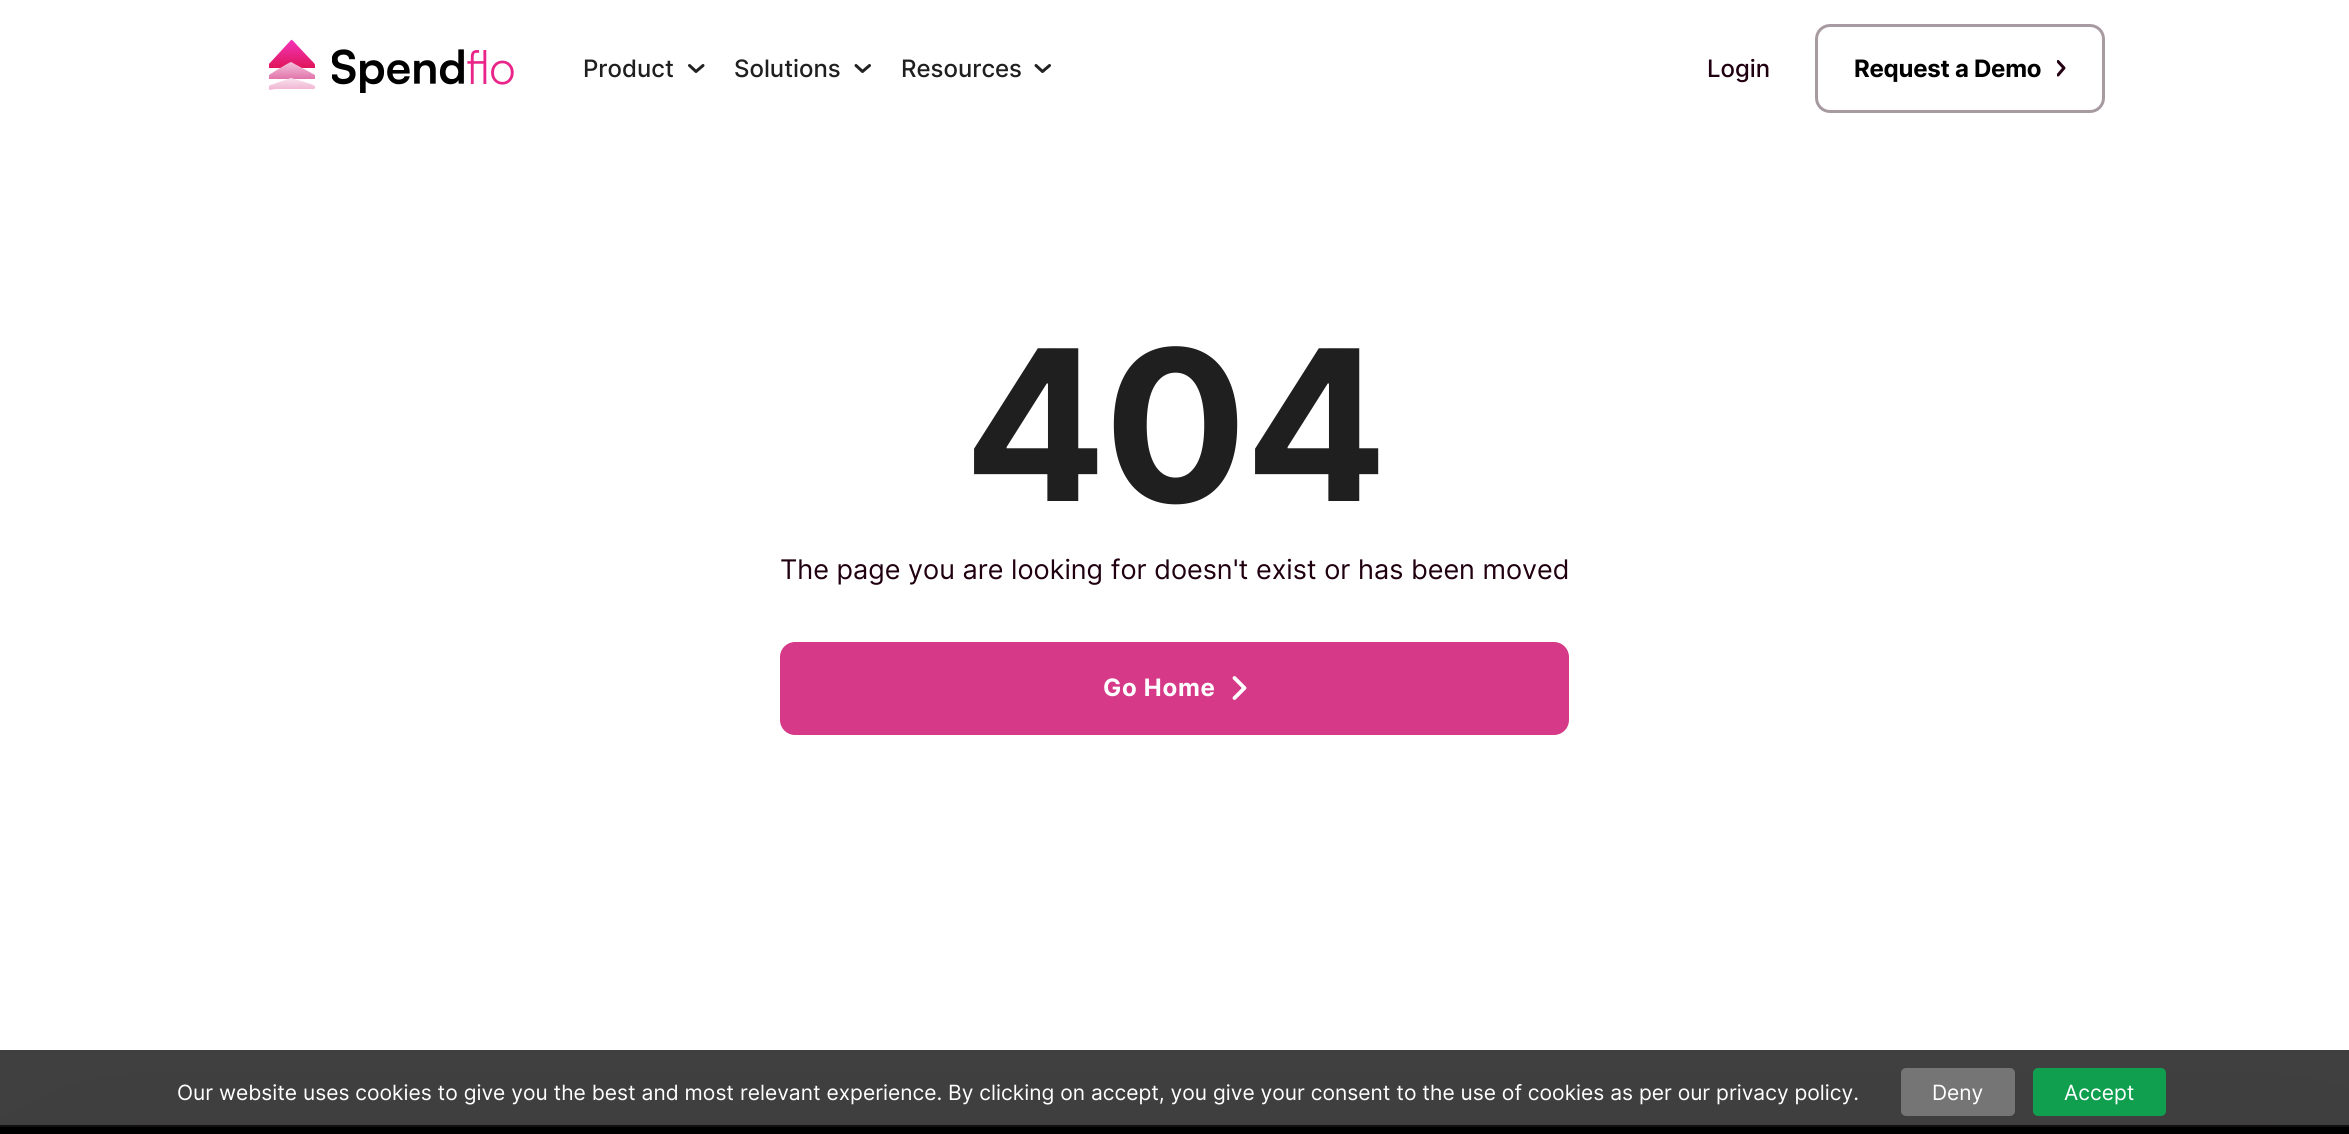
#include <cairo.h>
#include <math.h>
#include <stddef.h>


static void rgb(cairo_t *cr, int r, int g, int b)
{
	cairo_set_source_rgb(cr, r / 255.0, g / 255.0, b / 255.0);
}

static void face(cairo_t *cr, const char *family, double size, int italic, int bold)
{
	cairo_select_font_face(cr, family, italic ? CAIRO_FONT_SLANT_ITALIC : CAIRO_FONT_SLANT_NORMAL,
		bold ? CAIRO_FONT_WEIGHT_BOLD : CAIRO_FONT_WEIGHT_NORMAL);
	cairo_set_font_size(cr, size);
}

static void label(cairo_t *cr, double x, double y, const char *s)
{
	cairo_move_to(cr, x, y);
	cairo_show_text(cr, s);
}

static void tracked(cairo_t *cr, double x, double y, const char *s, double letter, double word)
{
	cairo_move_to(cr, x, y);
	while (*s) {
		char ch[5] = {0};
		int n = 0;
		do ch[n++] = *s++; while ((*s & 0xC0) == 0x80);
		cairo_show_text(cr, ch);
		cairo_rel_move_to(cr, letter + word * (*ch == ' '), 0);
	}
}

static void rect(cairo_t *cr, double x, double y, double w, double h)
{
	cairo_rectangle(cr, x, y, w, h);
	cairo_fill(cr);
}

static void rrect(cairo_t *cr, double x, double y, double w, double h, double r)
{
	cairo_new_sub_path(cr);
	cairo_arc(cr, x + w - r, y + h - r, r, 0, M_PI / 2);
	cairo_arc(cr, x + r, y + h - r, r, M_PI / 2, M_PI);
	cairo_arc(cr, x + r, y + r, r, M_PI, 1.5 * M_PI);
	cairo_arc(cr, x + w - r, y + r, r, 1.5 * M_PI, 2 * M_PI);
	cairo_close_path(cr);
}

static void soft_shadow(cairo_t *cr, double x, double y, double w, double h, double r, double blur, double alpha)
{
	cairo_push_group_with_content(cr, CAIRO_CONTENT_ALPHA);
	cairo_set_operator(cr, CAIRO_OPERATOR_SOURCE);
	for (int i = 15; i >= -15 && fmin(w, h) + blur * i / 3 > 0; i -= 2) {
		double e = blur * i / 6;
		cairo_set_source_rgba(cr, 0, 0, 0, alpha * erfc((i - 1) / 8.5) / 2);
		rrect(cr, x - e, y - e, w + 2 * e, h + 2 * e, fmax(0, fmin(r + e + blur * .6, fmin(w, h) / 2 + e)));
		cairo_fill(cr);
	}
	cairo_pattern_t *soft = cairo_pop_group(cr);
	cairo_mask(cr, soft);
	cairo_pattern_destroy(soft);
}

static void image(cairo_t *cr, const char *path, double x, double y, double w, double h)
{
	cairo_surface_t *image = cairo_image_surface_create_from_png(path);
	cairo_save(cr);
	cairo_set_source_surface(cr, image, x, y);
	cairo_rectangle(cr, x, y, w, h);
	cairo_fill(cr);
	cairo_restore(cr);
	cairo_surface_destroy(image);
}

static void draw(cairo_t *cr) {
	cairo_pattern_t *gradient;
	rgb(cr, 255, 255, 255);
	cairo_paint(cr);
	cairo_save(cr);
	cairo_rectangle(cr, 269, 39, 46, 29);
	cairo_clip(cr);
	gradient = cairo_pattern_create_linear(292, 40, 292, 68);
	cairo_pattern_add_color_stop_rgba(gradient, 0, 0.949, 0.204, 0.729, 1);
	cairo_pattern_add_color_stop_rgba(gradient, 1, 0.878, 0.086, 0.349, 1);
	cairo_set_source(cr, gradient);
	cairo_pattern_destroy(gradient);
	cairo_new_path(cr);
	cairo_move_to(cr, 291, 40);
	cairo_line_to(cr, 268, 65);
	cairo_curve_to(cr, 267, 70, 272, 68, 277, 68);
	cairo_line_to(cr, 315, 68);
	cairo_curve_to(cr, 317, 65, 312, 61, 311, 60);
	cairo_line_to(cr, 296, 44);
	cairo_curve_to(cr, 294, 42, 292, 39, 291, 40);
	cairo_close_path(cr);
	cairo_fill(cr);
	cairo_restore(cr);
	cairo_save(cr);
	cairo_rectangle(cr, 269, 62, 46, 18);
	cairo_clip(cr);
	gradient = cairo_pattern_create_linear(292, 62, 292, 79);
	cairo_pattern_add_color_stop_rgba(gradient, 0, 0.953, 0.769, 0.863, 1);
	cairo_pattern_add_color_stop_rgba(gradient, 1, 0.886, 0.455, 0.671, 1);
	cairo_set_source(cr, gradient);
	cairo_pattern_destroy(gradient);
	cairo_new_path(cr);
	cairo_move_to(cr, 291, 62);
	cairo_curve_to(cr, 288, 63, 268, 75, 268, 76);
	cairo_curve_to(cr, 268, 77, 268, 78, 269, 79);
	cairo_line_to(cr, 315, 79);
	cairo_line_to(cr, 315, 75);
	cairo_close_path(cr);
	cairo_fill(cr);
	cairo_restore(cr);
	cairo_save(cr);
	cairo_rectangle(cr, 269, 77, 46, 13);
	cairo_clip(cr);
	gradient = cairo_pattern_create_linear(292, 89, 292, 78);
	cairo_pattern_add_color_stop_rgba(gradient, 0, 0.945, 0.718, 0.831, 1);
	cairo_pattern_add_color_stop_rgba(gradient, 1, 0.976, 0.89, 0.933, 1);
	cairo_set_source(cr, gradient);
	cairo_pattern_destroy(gradient);
	cairo_new_path(cr);
	cairo_move_to(cr, 291, 78);
	cairo_line_to(cr, 276, 83);
	cairo_curve_to(cr, 275, 84, 268, 85, 268, 87);
	cairo_curve_to(cr, 268, 92, 271, 89, 277, 89);
	cairo_line_to(cr, 314, 89);
	cairo_line_to(cr, 315, 88);
	cairo_curve_to(cr, 315, 85, 315, 86, 311, 84);
	cairo_close_path(cr);
	cairo_fill(cr);
	cairo_restore(cr);
	image(cr, "image0.png", 332, 49, 182, 44);
	face(cr, "Inter Medium", 24, 0, 0);
	rgb(cr, 31, 31, 31);
	label(cr, 583, 77, "Product");
	cairo_new_path(cr);
	cairo_move_to(cr, 703, 65.5);
	cairo_line_to(cr, 696, 71.5);
	cairo_line_to(cr, 689.5, 65.5);
	rgb(cr, 34, 34, 34);
	cairo_set_line_width(cr, 3);
	cairo_set_line_cap(cr, CAIRO_LINE_CAP_ROUND);
	cairo_set_line_join(cr, CAIRO_LINE_JOIN_ROUND);
	cairo_stroke(cr);
	rgb(cr, 31, 31, 31);
	label(cr, 734, 77, "Solutions");
	cairo_new_path(cr);
	cairo_move_to(cr, 869.5, 65.5);
	cairo_line_to(cr, 862.5, 71.5);
	cairo_line_to(cr, 856, 65.5);
	rgb(cr, 34, 34, 34);
	cairo_stroke(cr);
	rgb(cr, 31, 31, 31);
	label(cr, 901, 77, "Resources");
	cairo_new_path(cr);
	cairo_move_to(cr, 1049.5, 65.5);
	cairo_line_to(cr, 1042.5, 71.5);
	cairo_line_to(cr, 1036, 65.5);
	rgb(cr, 34, 34, 34);
	cairo_stroke(cr);
	rgb(cr, 32, 0, 16);
	label(cr, 1707, 77, "Login");
	rrect(cr, 1816.5, 25.5, 287, 86, 13.5);
	rgb(cr, 167, 154, 161);
	cairo_set_line_cap(cr, CAIRO_LINE_CAP_BUTT);
	cairo_set_line_join(cr, CAIRO_LINE_JOIN_MITER);
	cairo_stroke(cr);
	face(cr, "Inter", 24, 0, 1);
	rgb(cr, 0, 0, 0);
	tracked(cr, 1854, 77, "Request a Demo", -0.25, 0);
	cairo_save(cr);
	cairo_rectangle(cr, 2057, 54, 9, 29);
	cairo_clip(cr);
	cairo_new_path(cr);
	cairo_move_to(cr, 2058, 61.5);
	cairo_line_to(cr, 2064, 68);
	cairo_line_to(cr, 2058, 75);
	rgb(cr, 36, 2, 19);
	cairo_set_line_cap(cr, CAIRO_LINE_CAP_ROUND);
	cairo_set_line_join(cr, CAIRO_LINE_JOIN_ROUND);
	cairo_stroke(cr);
	cairo_restore(cr);
	face(cr, "Inter", 210, 0, 1);
	rgb(cr, 31, 31, 31);
	tracked(cr, 964, 501, "404", -3, 0);
	face(cr, "Inter", 27, 0, 0);
	rgb(cr, 32, 0, 16);
	label(cr, 780, 579, "The page you are looking for doesn't exist or has been moved");
	rgb(cr, 213, 57, 135);
	rrect(cr, 780, 642, 789, 93, 15);
	cairo_fill(cr);
	face(cr, "Inter", 24, 0, 1);
	rgb(cr, 255, 255, 255);
	tracked(cr, 1103, 696, "Go Home", 0.75, 0);
	cairo_new_path(cr);
	cairo_move_to(cr, 1234.5, 678);
	cairo_line_to(cr, 1244.5, 688);
	cairo_line_to(cr, 1234.5, 698);
	cairo_set_line_width(cr, 3.8);
	cairo_set_line_cap(cr, CAIRO_LINE_CAP_ROUND);
	cairo_set_line_join(cr, CAIRO_LINE_JOIN_ROUND);
	cairo_stroke(cr);
	rgb(cr, 255, 0, 128);
	soft_shadow(cr, 89, 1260, 2229, 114, 15, 75, 1);
	rgb(cr, 0, 0, 0);
	rect(cr, 0, 1127, 2349, 7);
	rgb(cr, 64, 63, 63);
	rect(cr, 0, 1125, 2349, 2);
	cairo_set_source_rgba(cr, 0, 0, 0, 0.75);
	rect(cr, 0, 1050, 2349, 77);
	face(cr, "Inter", 21, 0, 0);
	rgb(cr, 255, 255, 255);
	label(cr, 177, 1100, "Our website uses cookies to give you the best and most relevant experience. By clicking on accept, you give your consent to the use of cookies as per our privacy policy.");
	rgb(cr, 117, 117, 117);
	rrect(cr, 1902, 1069, 112, 46, 4);
	cairo_fill_preserve(cr);
	cairo_set_line_width(cr, 2);
	cairo_set_line_cap(cr, CAIRO_LINE_CAP_BUTT);
	cairo_set_line_join(cr, CAIRO_LINE_JOIN_MITER);
	cairo_stroke(cr);
	rgb(cr, 255, 255, 255);
	label(cr, 1932, 1100, "Deny");
	rgb(cr, 15, 159, 79);
	rrect(cr, 2034, 1069, 131, 46, 4);
	cairo_fill_preserve(cr);
	cairo_stroke(cr);
	rgb(cr, 255, 255, 255);
	label(cr, 2064, 1100, "Accept");
}

int main(void) {
	cairo_surface_t *surface = cairo_image_surface_create(CAIRO_FORMAT_RGB24, 2349, 1134);
	cairo_t *cr = cairo_create(surface);
	cairo_font_options_t *options = cairo_font_options_create();
	cairo_font_options_set_hint_metrics(options, CAIRO_HINT_METRICS_OFF);
	cairo_font_options_set_hint_style(options, CAIRO_HINT_STYLE_NONE);
	cairo_set_font_options(cr, options);
	cairo_set_miter_limit(cr, 4);
	draw(cr);
	cairo_surface_write_to_png(surface, "render.png");
	cairo_font_options_destroy(options);
	cairo_destroy(cr);
	cairo_surface_destroy(surface);
	return 0;
}
